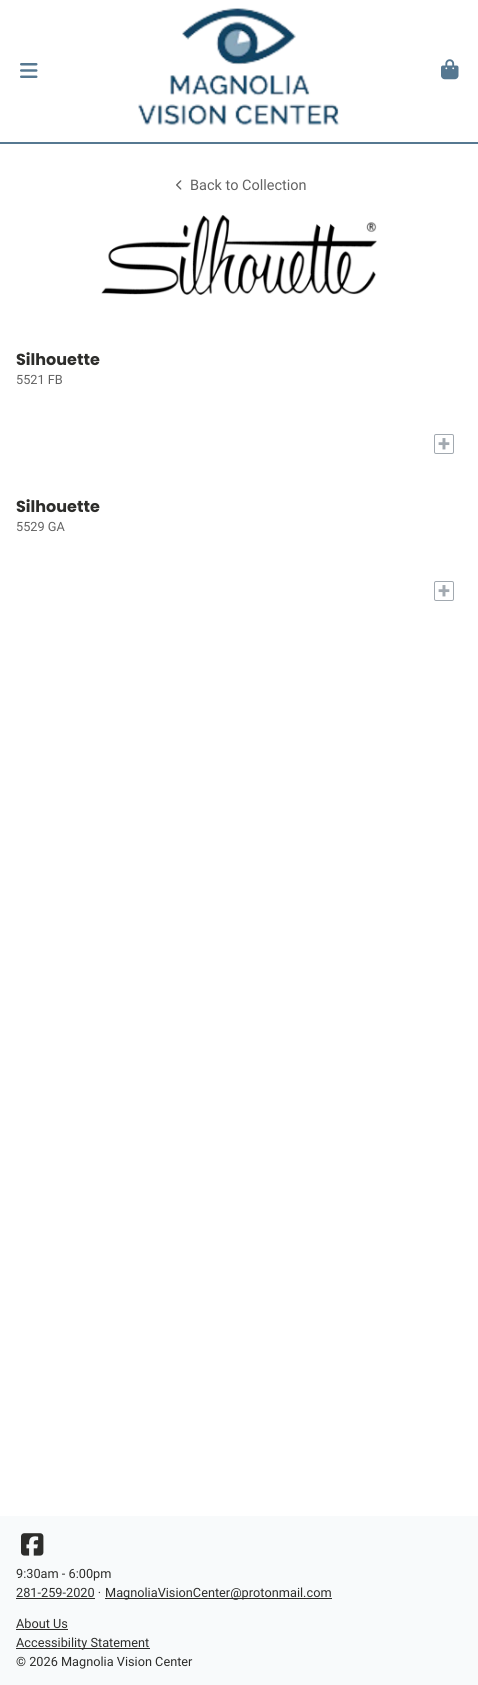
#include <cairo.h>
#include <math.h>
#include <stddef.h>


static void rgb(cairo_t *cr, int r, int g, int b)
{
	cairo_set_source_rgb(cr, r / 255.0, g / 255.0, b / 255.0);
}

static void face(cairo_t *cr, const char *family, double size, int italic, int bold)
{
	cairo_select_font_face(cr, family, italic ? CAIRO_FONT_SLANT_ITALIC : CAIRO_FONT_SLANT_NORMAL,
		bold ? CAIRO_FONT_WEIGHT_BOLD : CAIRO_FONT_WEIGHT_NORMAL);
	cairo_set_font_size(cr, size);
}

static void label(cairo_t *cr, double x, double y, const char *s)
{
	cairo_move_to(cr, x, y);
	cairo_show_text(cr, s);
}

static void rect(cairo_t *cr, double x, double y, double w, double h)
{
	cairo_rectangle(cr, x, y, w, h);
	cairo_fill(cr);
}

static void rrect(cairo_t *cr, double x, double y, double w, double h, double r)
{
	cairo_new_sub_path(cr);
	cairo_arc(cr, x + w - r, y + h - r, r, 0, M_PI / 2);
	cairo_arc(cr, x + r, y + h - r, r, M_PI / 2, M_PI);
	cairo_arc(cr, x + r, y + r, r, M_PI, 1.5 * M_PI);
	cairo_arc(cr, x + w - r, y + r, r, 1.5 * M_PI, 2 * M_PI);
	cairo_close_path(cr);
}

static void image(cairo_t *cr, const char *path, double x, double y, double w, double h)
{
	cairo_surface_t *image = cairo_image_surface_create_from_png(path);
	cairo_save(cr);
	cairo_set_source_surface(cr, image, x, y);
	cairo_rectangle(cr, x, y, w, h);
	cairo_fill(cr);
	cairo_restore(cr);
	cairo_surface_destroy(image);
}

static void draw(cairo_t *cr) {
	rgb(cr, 255, 255, 255);
	cairo_paint(cr);
	rgb(cr, 86, 120, 145);
	rect(cr, 0, 142, 478, 2);
	image(cr, "image0.png", 20, 63, 18, 15);
	image(cr, "image1.png", 138, 8, 202, 118);
	image(cr, "image2.png", 441, 59, 18, 21);
	image(cr, "image3.png", 176, 180, 6, 10);
	face(cr, "Roboto", 14.5, 0, 0);
	rgb(cr, 98, 98, 98);
	label(cr, 190, 190, "Back to Collection");
	image(cr, "image4.png", 101, 215, 276, 80);
	face(cr, "Poppins", 16, 0, 1);
	rgb(cr, 45, 45, 43);
	label(cr, 16, 365, "Silhouette");
	face(cr, "Roboto", 12.75, 0, 0);
	rgb(cr, 98, 98, 98);
	label(cr, 16, 384, "5521 FB");
	rrect(cr, 434.5, 434.5, 19, 19, 1.5);
	rgb(cr, 162, 169, 176);
	cairo_set_line_width(cr, 1);
	cairo_stroke(cr);
	face(cr, "Roboto", 22, 0, 1);
	label(cr, 438, 451, "+");
	face(cr, "Poppins", 16, 0, 1);
	rgb(cr, 45, 45, 43);
	label(cr, 16, 512, "Silhouette");
	face(cr, "Roboto", 12.75, 0, 0);
	rgb(cr, 98, 98, 98);
	label(cr, 16, 531, "5529 GA");
	rrect(cr, 434.5, 581.5, 19, 19, 1.5);
	rgb(cr, 162, 169, 176);
	cairo_stroke(cr);
	face(cr, "Roboto", 22, 0, 1);
	label(cr, 438, 598, "+");
	rgb(cr, 248, 250, 251);
	rect(cr, 0, 1516, 478, 169);
	image(cr, "image5.png", 21, 1533, 23, 23);
	face(cr, "Roboto", 12.75, 0, 0);
	rgb(cr, 45, 45, 43);
	label(cr, 16, 1578, "9:30am - 6:00pm");
	label(cr, 16, 1597, "281-259-2020 ·");
	rect(cr, 16, 1598, 79, 1);
	rect(cr, 105, 1598, 227, 1);
	label(cr, 105, 1597, "MagnoliaVisionCenter@protonmail.com");
	label(cr, 16, 1628, "About Us");
	rect(cr, 16, 1629, 52, 1);
	rect(cr, 16, 1648, 134, 1);
	label(cr, 16, 1647, "Accessibility Statement");
	label(cr, 16, 1666, "© 2026 Magnolia Vision Center");
}

int main(void) {
	cairo_surface_t *surface = cairo_image_surface_create(CAIRO_FORMAT_RGB24, 478, 1685);
	cairo_t *cr = cairo_create(surface);
	cairo_font_options_t *options = cairo_font_options_create();
	cairo_font_options_set_hint_metrics(options, CAIRO_HINT_METRICS_OFF);
	cairo_font_options_set_hint_style(options, CAIRO_HINT_STYLE_NONE);
	cairo_set_font_options(cr, options);
	cairo_set_miter_limit(cr, 4);
	draw(cr);
	cairo_surface_write_to_png(surface, "render.png");
	cairo_font_options_destroy(options);
	cairo_destroy(cr);
	cairo_surface_destroy(surface);
	return 0;
}
